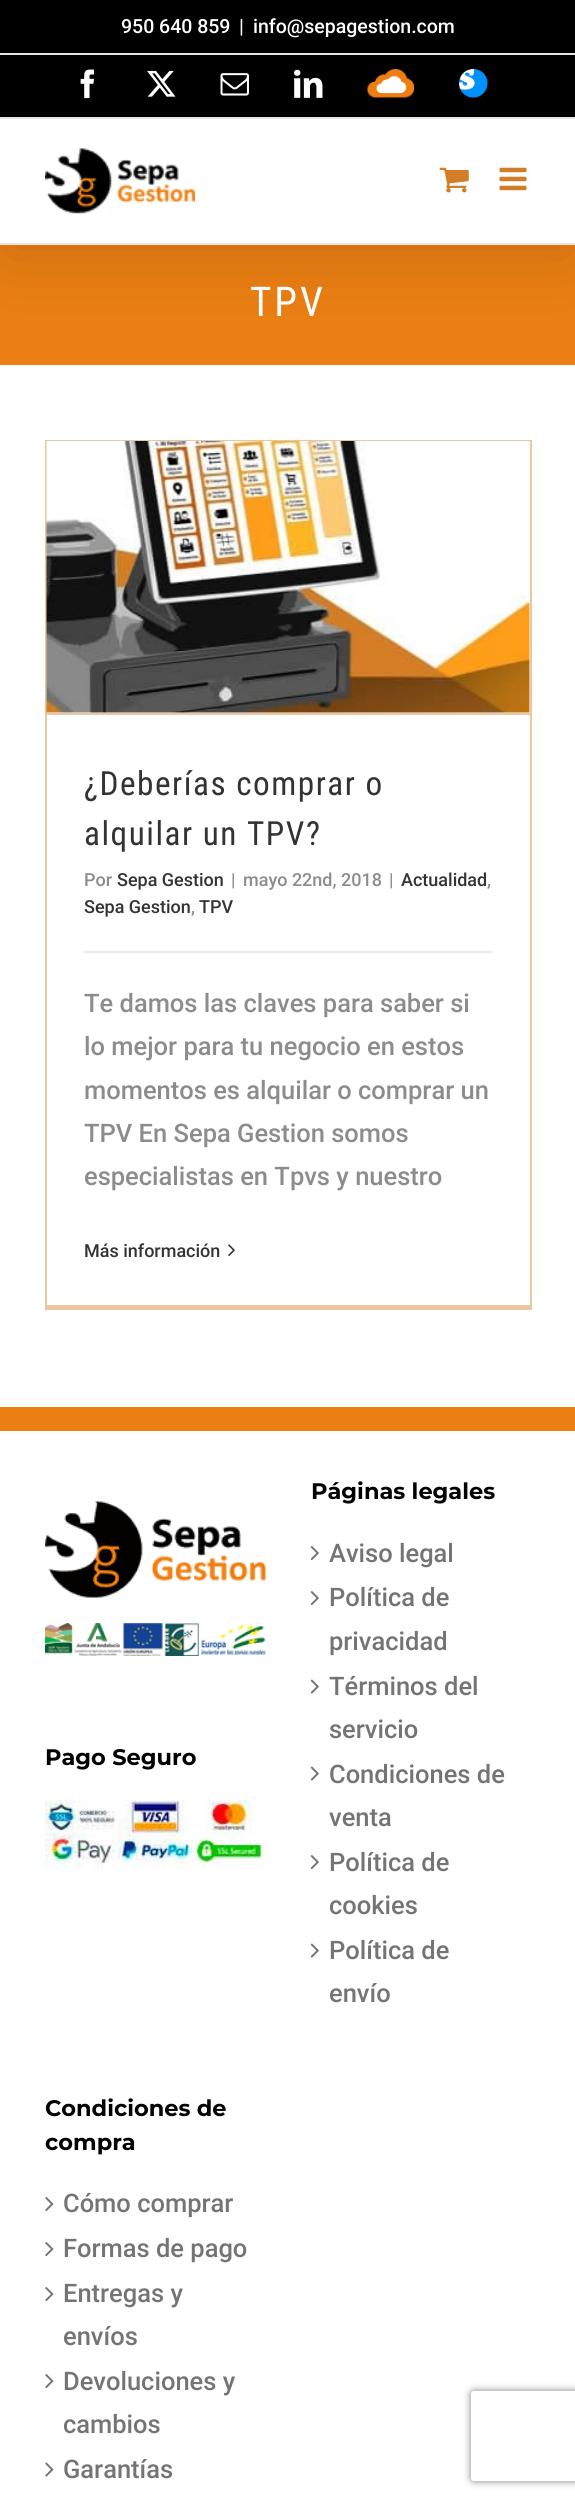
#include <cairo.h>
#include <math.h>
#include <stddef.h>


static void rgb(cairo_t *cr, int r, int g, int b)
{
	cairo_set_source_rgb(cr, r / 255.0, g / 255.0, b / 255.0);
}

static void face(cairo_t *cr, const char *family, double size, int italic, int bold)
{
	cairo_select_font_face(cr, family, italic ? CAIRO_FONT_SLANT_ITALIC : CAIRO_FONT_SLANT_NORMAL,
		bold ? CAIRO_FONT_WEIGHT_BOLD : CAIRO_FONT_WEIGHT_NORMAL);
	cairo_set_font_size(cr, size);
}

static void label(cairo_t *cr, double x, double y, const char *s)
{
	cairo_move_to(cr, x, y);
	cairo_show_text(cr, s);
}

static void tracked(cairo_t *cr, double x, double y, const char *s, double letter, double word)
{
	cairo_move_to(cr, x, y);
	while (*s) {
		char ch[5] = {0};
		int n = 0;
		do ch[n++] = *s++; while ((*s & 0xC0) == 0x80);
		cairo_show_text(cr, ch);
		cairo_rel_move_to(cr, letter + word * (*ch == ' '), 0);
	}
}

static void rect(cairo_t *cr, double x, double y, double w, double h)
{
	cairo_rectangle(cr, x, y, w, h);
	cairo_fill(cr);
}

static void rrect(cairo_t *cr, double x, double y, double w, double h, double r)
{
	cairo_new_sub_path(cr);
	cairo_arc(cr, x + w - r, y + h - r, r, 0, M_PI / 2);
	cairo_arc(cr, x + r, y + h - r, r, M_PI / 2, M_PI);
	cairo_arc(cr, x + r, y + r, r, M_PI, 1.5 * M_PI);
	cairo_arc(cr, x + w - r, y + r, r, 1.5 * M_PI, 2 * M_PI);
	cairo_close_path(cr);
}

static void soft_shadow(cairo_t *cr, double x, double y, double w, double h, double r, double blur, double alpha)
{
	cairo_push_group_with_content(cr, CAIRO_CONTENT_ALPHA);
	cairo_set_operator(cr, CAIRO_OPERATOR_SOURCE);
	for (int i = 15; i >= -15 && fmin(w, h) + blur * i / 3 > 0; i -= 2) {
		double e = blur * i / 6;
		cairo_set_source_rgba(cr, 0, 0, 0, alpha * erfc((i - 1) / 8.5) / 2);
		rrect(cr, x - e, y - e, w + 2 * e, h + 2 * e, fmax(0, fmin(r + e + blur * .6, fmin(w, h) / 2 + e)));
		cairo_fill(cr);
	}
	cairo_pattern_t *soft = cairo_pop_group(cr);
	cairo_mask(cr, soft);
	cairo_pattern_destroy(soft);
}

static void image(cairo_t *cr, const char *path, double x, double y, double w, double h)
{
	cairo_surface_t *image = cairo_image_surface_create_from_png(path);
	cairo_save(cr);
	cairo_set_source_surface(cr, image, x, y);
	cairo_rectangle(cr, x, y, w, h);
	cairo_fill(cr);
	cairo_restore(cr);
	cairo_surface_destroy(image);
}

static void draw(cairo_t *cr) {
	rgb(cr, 255, 255, 255);
	cairo_paint(cr);
	rgb(cr, 235, 127, 19);
	rect(cr, 0, 245, 575, 120);
	rgb(cr, 0, 0, 0);
	soft_shadow(cr, 3, 18, 570, 239, 0, 37.5, 0.14);
	rgb(cr, 0, 0, 0);
	rect(cr, 0, 0, 575, 117);
	rgb(cr, 229, 229, 229);
	rect(cr, 0, 117, 575, 2);
	rect(cr, 0, 53, 575, 2);
	face(cr, "Roboto Medium", 19.5, 0, 0);
	rgb(cr, 255, 255, 255);
	label(cr, 121, 33, "950 640 859");
	label(cr, 239, 33, "|");
	label(cr, 253, 33, "info@sepagestion.com");
	image(cr, "image0.png", 80, 69, 14, 30);
	image(cr, "image1.png", 147, 70, 29, 27);
	image(cr, "image2.png", 220, 73, 29, 23);
	image(cr, "image3.png", 294, 69, 29, 29);
	image(cr, "image4.png", 367, 69, 47, 29);
	image(cr, "image5.png", 459, 69, 29, 29);
	rect(cr, 0, 119, 575, 124);
	rgb(cr, 229, 229, 229);
	rect(cr, 0, 243, 575, 2);
	image(cr, "image6.png", 45, 148, 150, 66);
	image(cr, "image7.png", 439, 167, 30, 26);
	image(cr, "image8.png", 499, 167, 28, 24);
	face(cr, "Roboto Condensed", 41, 0, 0);
	rgb(cr, 255, 255, 255);
	tracked(cr, 250, 316, "TPV", 3, 0);
	rgb(cr, 234, 198, 161);
	rect(cr, 45, 440, 486, 2);
	rect(cr, 530, 440, 2, 870);
	rect(cr, 45, 1305, 486, 5);
	rect(cr, 45, 440, 2, 870);
	rect(cr, 47, 713, 483, 2);
	image(cr, "image9.png", 46, 441, 484, 272);
	face(cr, "Roboto Condensed", 33.25, 0, 0);
	rgb(cr, 51, 51, 51);
	tracked(cr, 84, 795, "¿Deberías comprar o", 1.5, 0);
	tracked(cr, 84, 845, "alquilar un TPV?", 1.5, 0);
	face(cr, "Roboto Medium", 18, 0, 0);
	rgb(cr, 140, 140, 140);
	label(cr, 84, 886, "Por");
	rgb(cr, 51, 51, 51);
	label(cr, 117, 886, "Sepa Gestion");
	rgb(cr, 140, 140, 140);
	label(cr, 231, 886, "|");
	label(cr, 243, 886, "mayo 22nd, 2018");
	label(cr, 389, 886, "|");
	rgb(cr, 51, 51, 51);
	label(cr, 401, 886, "Actualidad");
	rgb(cr, 140, 140, 140);
	label(cr, 487, 886, ",");
	rgb(cr, 51, 51, 51);
	label(cr, 84, 913, "Sepa Gestion");
	rgb(cr, 140, 140, 140);
	label(cr, 191, 913, ",");
	rgb(cr, 51, 51, 51);
	label(cr, 199, 913, "TPV");
	rgb(cr, 234, 232, 232);
	rect(cr, 84, 951, 408, 2);
	face(cr, "Roboto Medium", 25.5, 0, 0);
	rgb(cr, 140, 140, 140);
	label(cr, 84, 1012, "Te damos las claves para saber si");
	label(cr, 84, 1055, "lo mejor para tu negocio en estos");
	label(cr, 84, 1099, "momentos es alquilar o comprar un");
	label(cr, 84, 1142, "TPV En Sepa Gestion somos");
	label(cr, 84, 1185, "especialistas en Tpvs y nuestro");
	face(cr, "Roboto Medium", 18, 0, 0);
	rgb(cr, 51, 51, 51);
	label(cr, 84, 1257, "Más información");
	image(cr, "image10.png", 228, 1244, 7, 12);
	rgb(cr, 235, 127, 19);
	rect(cr, 0, 1407, 575, 24);
	image(cr, "image11.png", 45, 1501, 221, 97);
	image(cr, "image12.png", 45, 1623, 221, 33);
	face(cr, "Montserrat Thin", 22.5, 0, 0);
	rgb(cr, 0, 0, 0);
	label(cr, 45, 1765, "Pago Seguro");
	image(cr, "image13.png", 45, 1800, 220, 68);
	label(cr, 311, 1499, "Páginas legales");
	image(cr, "image14.png", 310, 1546, 9, 15);
	face(cr, "Roboto Medium", 25.5, 0, 0);
	rgb(cr, 116, 116, 116);
	label(cr, 329, 1562, "Aviso legal");
	image(cr, "image14.png", 310, 1591, 9, 15);
	label(cr, 329, 1606, "Política de");
	label(cr, 329, 1650, "privacidad");
	image(cr, "image15.png", 310, 1679, 9, 15);
	label(cr, 329, 1695, "Términos del");
	label(cr, 329, 1738, "servicio");
	image(cr, "image15.png", 310, 1766, 9, 15);
	label(cr, 329, 1783, "Condiciones de");
	label(cr, 329, 1826, "venta");
	image(cr, "image14.png", 310, 1855, 9, 15);
	label(cr, 329, 1871, "Política de");
	label(cr, 329, 1914, "cookies");
	image(cr, "image15.png", 310, 1943, 9, 15);
	label(cr, 329, 1959, "Política de");
	label(cr, 329, 2002, "envío");
	face(cr, "Montserrat Thin", 22.5, 0, 0);
	rgb(cr, 0, 0, 0);
	label(cr, 45, 2116, "Condiciones de");
	label(cr, 45, 2150, "compra");
	image(cr, "image16.png", 45, 2197, 9, 15);
	face(cr, "Roboto Medium", 25.5, 0, 0);
	rgb(cr, 116, 116, 116);
	label(cr, 63, 2212, "Cómo comprar");
	image(cr, "image16.png", 45, 2242, 9, 15);
	label(cr, 63, 2257, "Formas de pago");
	image(cr, "image16.png", 45, 2287, 9, 15);
	label(cr, 63, 2302, "Entregas y");
	label(cr, 63, 2345, "envíos");
	image(cr, "image16.png", 45, 2374, 9, 15);
	label(cr, 63, 2390, "Devoluciones y");
	label(cr, 63, 2433, "cambios");
	image(cr, "image17.png", 45, 2462, 9, 15);
	label(cr, 63, 2478, "Garantías");
	cairo_save(cr);
	cairo_set_fill_rule(cr, CAIRO_FILL_RULE_EVEN_ODD);
	cairo_new_path(cr);
	cairo_move_to(cr, 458, 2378);
	cairo_line_to(cr, 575, 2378);
	cairo_line_to(cr, 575, 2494);
	cairo_line_to(cr, 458, 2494);
	cairo_close_path(cr);
	cairo_move_to(cr, 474, 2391);
	cairo_line_to(cr, 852, 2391);
	cairo_curve_to(cr, 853.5, 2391, 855, 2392.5, 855, 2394);
	cairo_line_to(cr, 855, 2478);
	cairo_curve_to(cr, 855, 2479.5, 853.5, 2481, 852, 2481);
	cairo_line_to(cr, 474, 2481);
	cairo_curve_to(cr, 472.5, 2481, 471, 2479.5, 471, 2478);
	cairo_line_to(cr, 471, 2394);
	cairo_curve_to(cr, 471, 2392.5, 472.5, 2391, 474, 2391);
	cairo_close_path(cr);
	cairo_clip(cr);
	rgb(cr, 128, 128, 128);
	soft_shadow(cr, 471, 2391, 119, 90, 3, 4, 1);
	cairo_restore(cr);
}

int main(void) {
	cairo_surface_t *surface = cairo_image_surface_create(CAIRO_FORMAT_RGB24, 575, 2502);
	cairo_t *cr = cairo_create(surface);
	cairo_font_options_t *options = cairo_font_options_create();
	cairo_font_options_set_hint_metrics(options, CAIRO_HINT_METRICS_OFF);
	cairo_font_options_set_hint_style(options, CAIRO_HINT_STYLE_NONE);
	cairo_set_font_options(cr, options);
	cairo_set_miter_limit(cr, 4);
	draw(cr);
	cairo_surface_write_to_png(surface, "render.png");
	cairo_font_options_destroy(options);
	cairo_destroy(cr);
	cairo_surface_destroy(surface);
	return 0;
}
